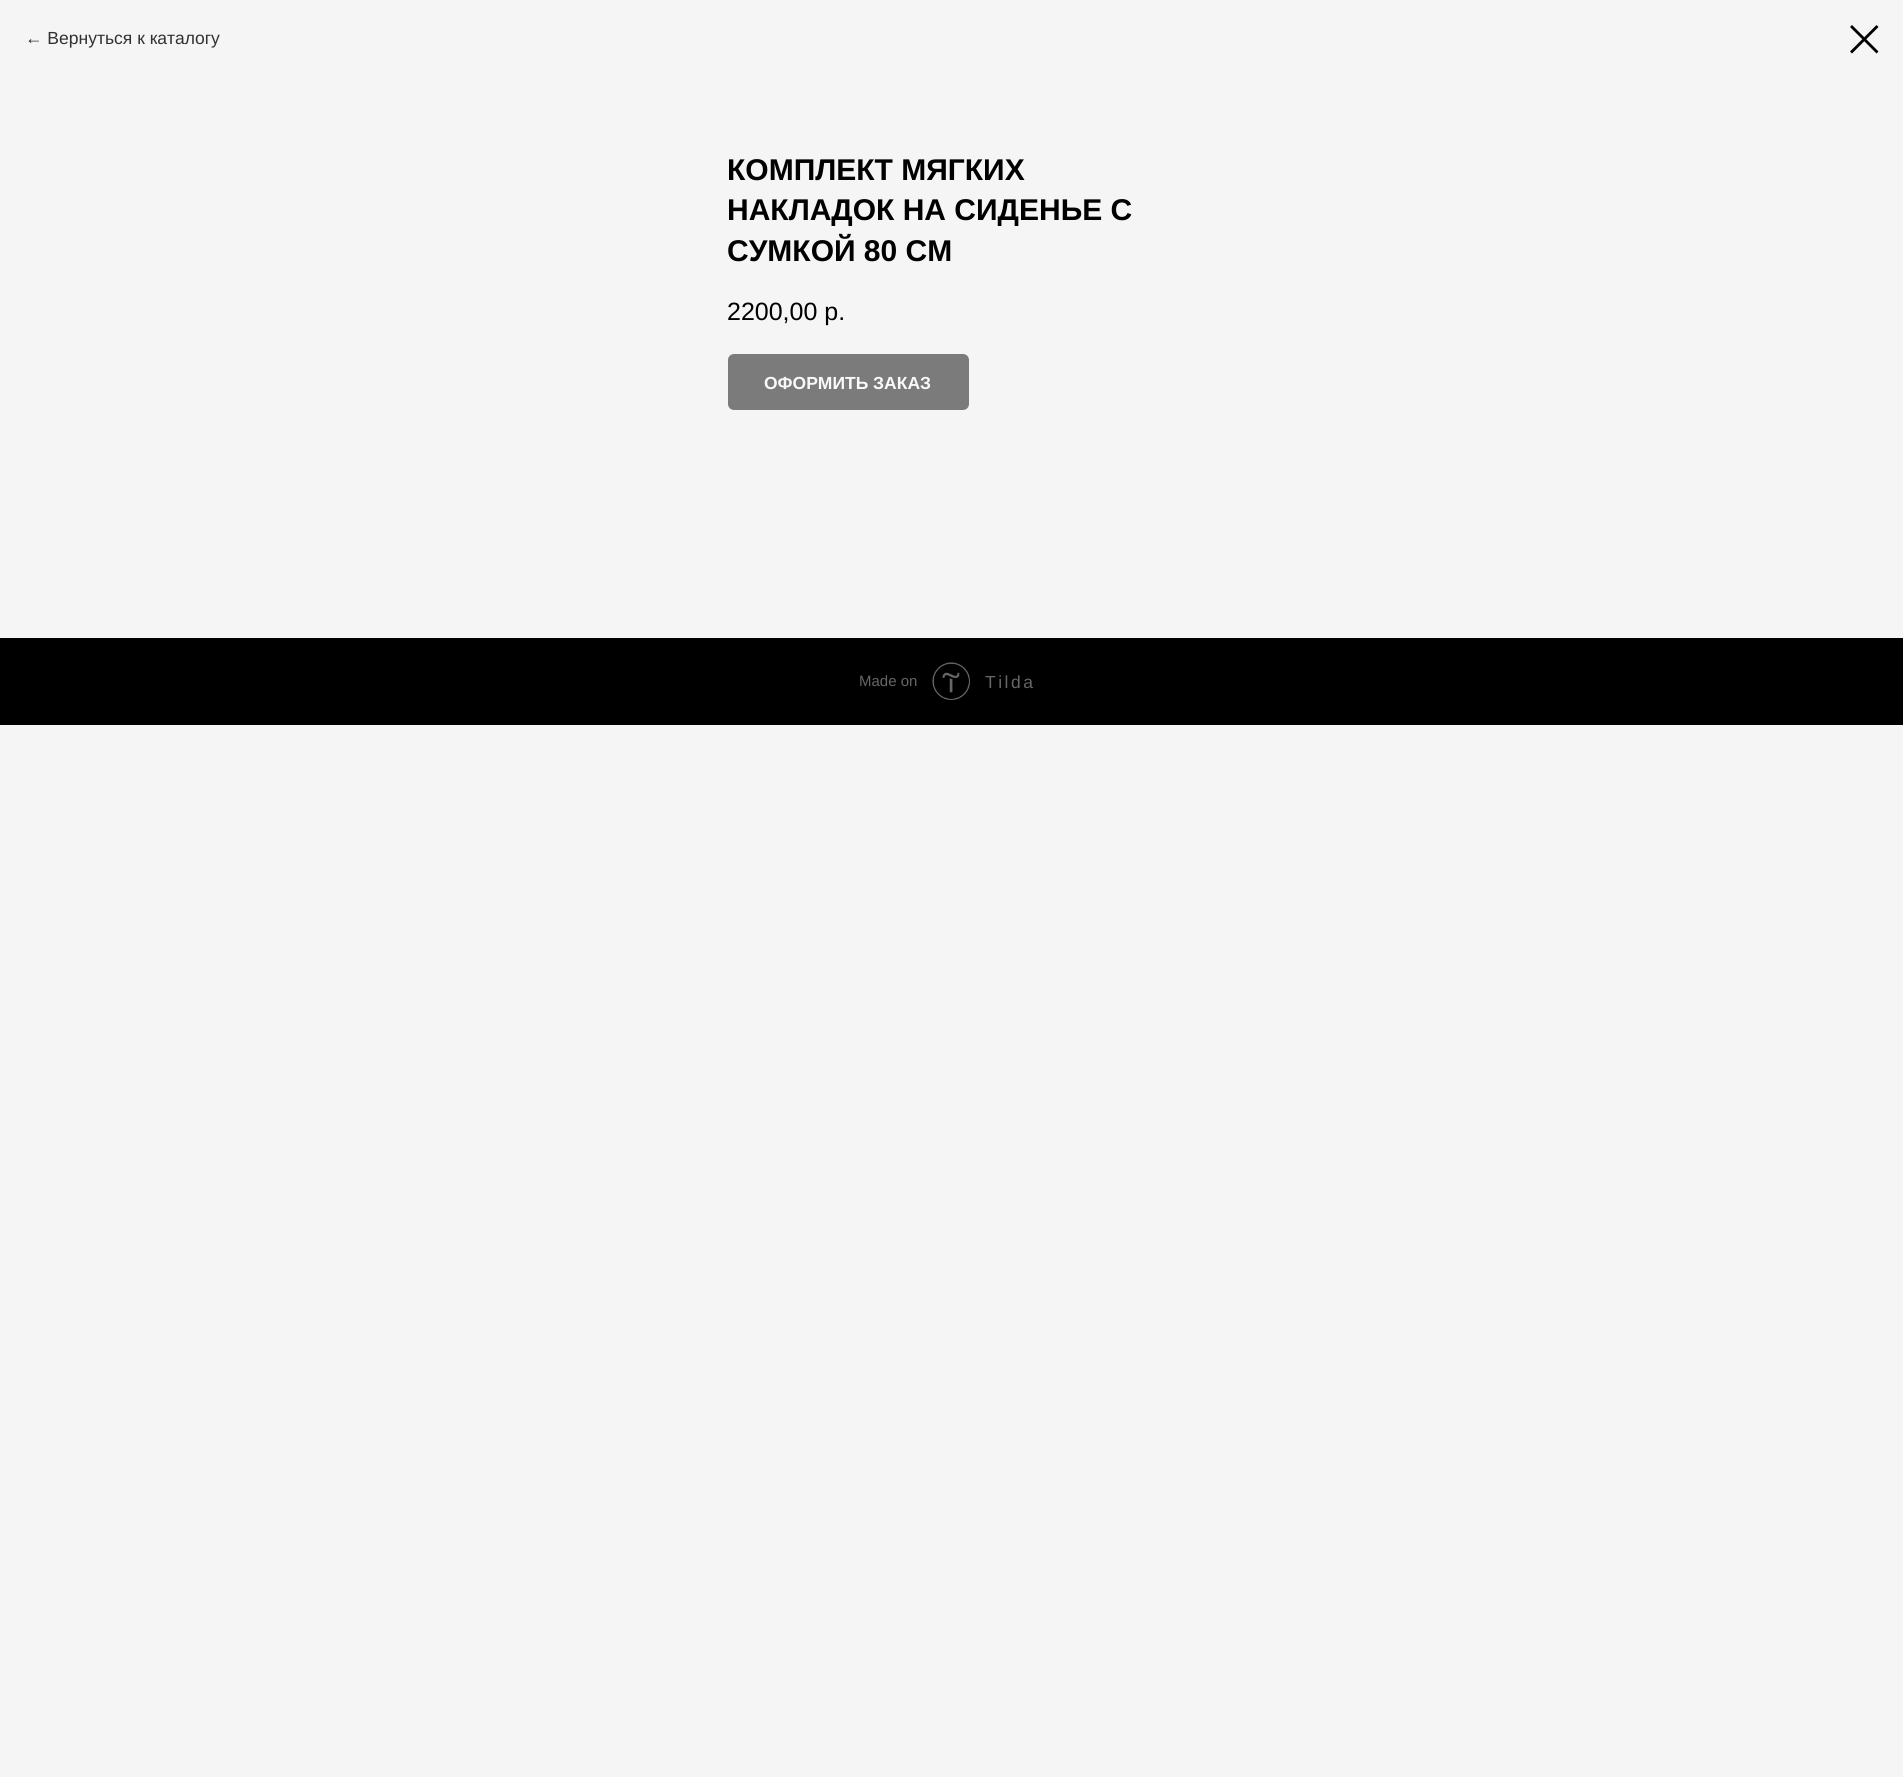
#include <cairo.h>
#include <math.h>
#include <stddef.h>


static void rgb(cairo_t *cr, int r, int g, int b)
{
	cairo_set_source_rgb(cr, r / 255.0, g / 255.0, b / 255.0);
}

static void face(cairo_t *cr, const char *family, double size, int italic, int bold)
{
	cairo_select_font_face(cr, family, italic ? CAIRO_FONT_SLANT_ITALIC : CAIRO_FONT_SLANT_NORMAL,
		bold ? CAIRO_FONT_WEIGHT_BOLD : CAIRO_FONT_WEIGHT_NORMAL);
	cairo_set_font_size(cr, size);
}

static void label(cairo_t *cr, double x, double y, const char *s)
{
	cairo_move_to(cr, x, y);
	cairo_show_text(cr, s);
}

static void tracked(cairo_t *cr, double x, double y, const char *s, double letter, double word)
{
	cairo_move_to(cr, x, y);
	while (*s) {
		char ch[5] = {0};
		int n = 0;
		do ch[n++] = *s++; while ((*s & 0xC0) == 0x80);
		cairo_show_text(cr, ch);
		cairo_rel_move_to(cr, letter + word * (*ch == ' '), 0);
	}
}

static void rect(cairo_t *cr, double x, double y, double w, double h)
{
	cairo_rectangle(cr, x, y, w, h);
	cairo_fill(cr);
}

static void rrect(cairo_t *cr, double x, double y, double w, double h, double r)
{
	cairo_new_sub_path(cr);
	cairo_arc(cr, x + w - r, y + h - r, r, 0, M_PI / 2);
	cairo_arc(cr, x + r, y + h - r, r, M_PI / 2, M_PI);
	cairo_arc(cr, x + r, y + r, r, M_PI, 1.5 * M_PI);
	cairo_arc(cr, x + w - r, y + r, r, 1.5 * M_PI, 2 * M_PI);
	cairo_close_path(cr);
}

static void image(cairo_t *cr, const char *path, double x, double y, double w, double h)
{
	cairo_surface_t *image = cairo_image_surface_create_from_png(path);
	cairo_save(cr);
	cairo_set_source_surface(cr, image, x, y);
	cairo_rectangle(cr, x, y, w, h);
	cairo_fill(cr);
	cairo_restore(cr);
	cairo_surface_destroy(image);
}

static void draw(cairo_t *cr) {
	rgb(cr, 245, 245, 245);
	cairo_paint(cr);
	face(cr, "Liberation Sans", 17.5, 0, 0);
	rgb(cr, 49, 49, 49);
	label(cr, 25, 44, "← Вернуться к каталогу");
	rgb(cr, 0, 0, 0);
	cairo_set_fill_rule(cr, CAIRO_FILL_RULE_EVEN_ODD);
	cairo_new_path(cr);
	cairo_move_to(cr, 1850, 27);
	cairo_line_to(cr, 1852, 25);
	cairo_line_to(cr, 1878.5, 51.5);
	cairo_line_to(cr, 1876.5, 53.5);
	cairo_close_path(cr);
	cairo_fill(cr);
	cairo_new_path(cr);
	cairo_move_to(cr, 1876.5, 25);
	cairo_line_to(cr, 1878.5, 27);
	cairo_line_to(cr, 1852, 53.5);
	cairo_line_to(cr, 1850, 51.5);
	cairo_close_path(cr);
	cairo_fill(cr);
	face(cr, "Liberation Sans", 30, 0, 1);
	label(cr, 727, 180, "КОМПЛЕКТ МЯГКИХ");
	label(cr, 727, 220, "НАКЛАДОК НА СИДЕНЬЕ С");
	label(cr, 727, 261, "СУМКОЙ 80 СМ");
	face(cr, "Liberation Sans", 25, 0, 0);
	label(cr, 727, 320, "2200,00 р.");
	rgb(cr, 123, 123, 123);
	rrect(cr, 728, 354, 241, 56, 6);
	cairo_fill(cr);
	face(cr, "Liberation Sans", 17.5, 0, 1);
	rgb(cr, 249, 249, 249);
	label(cr, 764, 389, "ОФОРМИТЬ ЗАКАЗ");
	rgb(cr, 0, 0, 0);
	rect(cr, 0, 638, 1903, 87);
	face(cr, "Liberation Sans", 15, 0, 0);
	rgb(cr, 102, 102, 102);
	label(cr, 859, 686, "Made on");
	image(cr, "image0.png", 932, 662, 38, 38);
	face(cr, "Liberation Sans", 17.5, 0, 0);
	tracked(cr, 985, 688, "Tilda", 2.5, 0);
}

int main(void) {
	cairo_surface_t *surface = cairo_image_surface_create(CAIRO_FORMAT_RGB24, 1903, 1777);
	cairo_t *cr = cairo_create(surface);
	cairo_font_options_t *options = cairo_font_options_create();
	cairo_font_options_set_hint_metrics(options, CAIRO_HINT_METRICS_OFF);
	cairo_font_options_set_hint_style(options, CAIRO_HINT_STYLE_NONE);
	cairo_set_font_options(cr, options);
	cairo_set_miter_limit(cr, 4);
	draw(cr);
	cairo_surface_write_to_png(surface, "render.png");
	cairo_font_options_destroy(options);
	cairo_destroy(cr);
	cairo_surface_destroy(surface);
	return 0;
}
